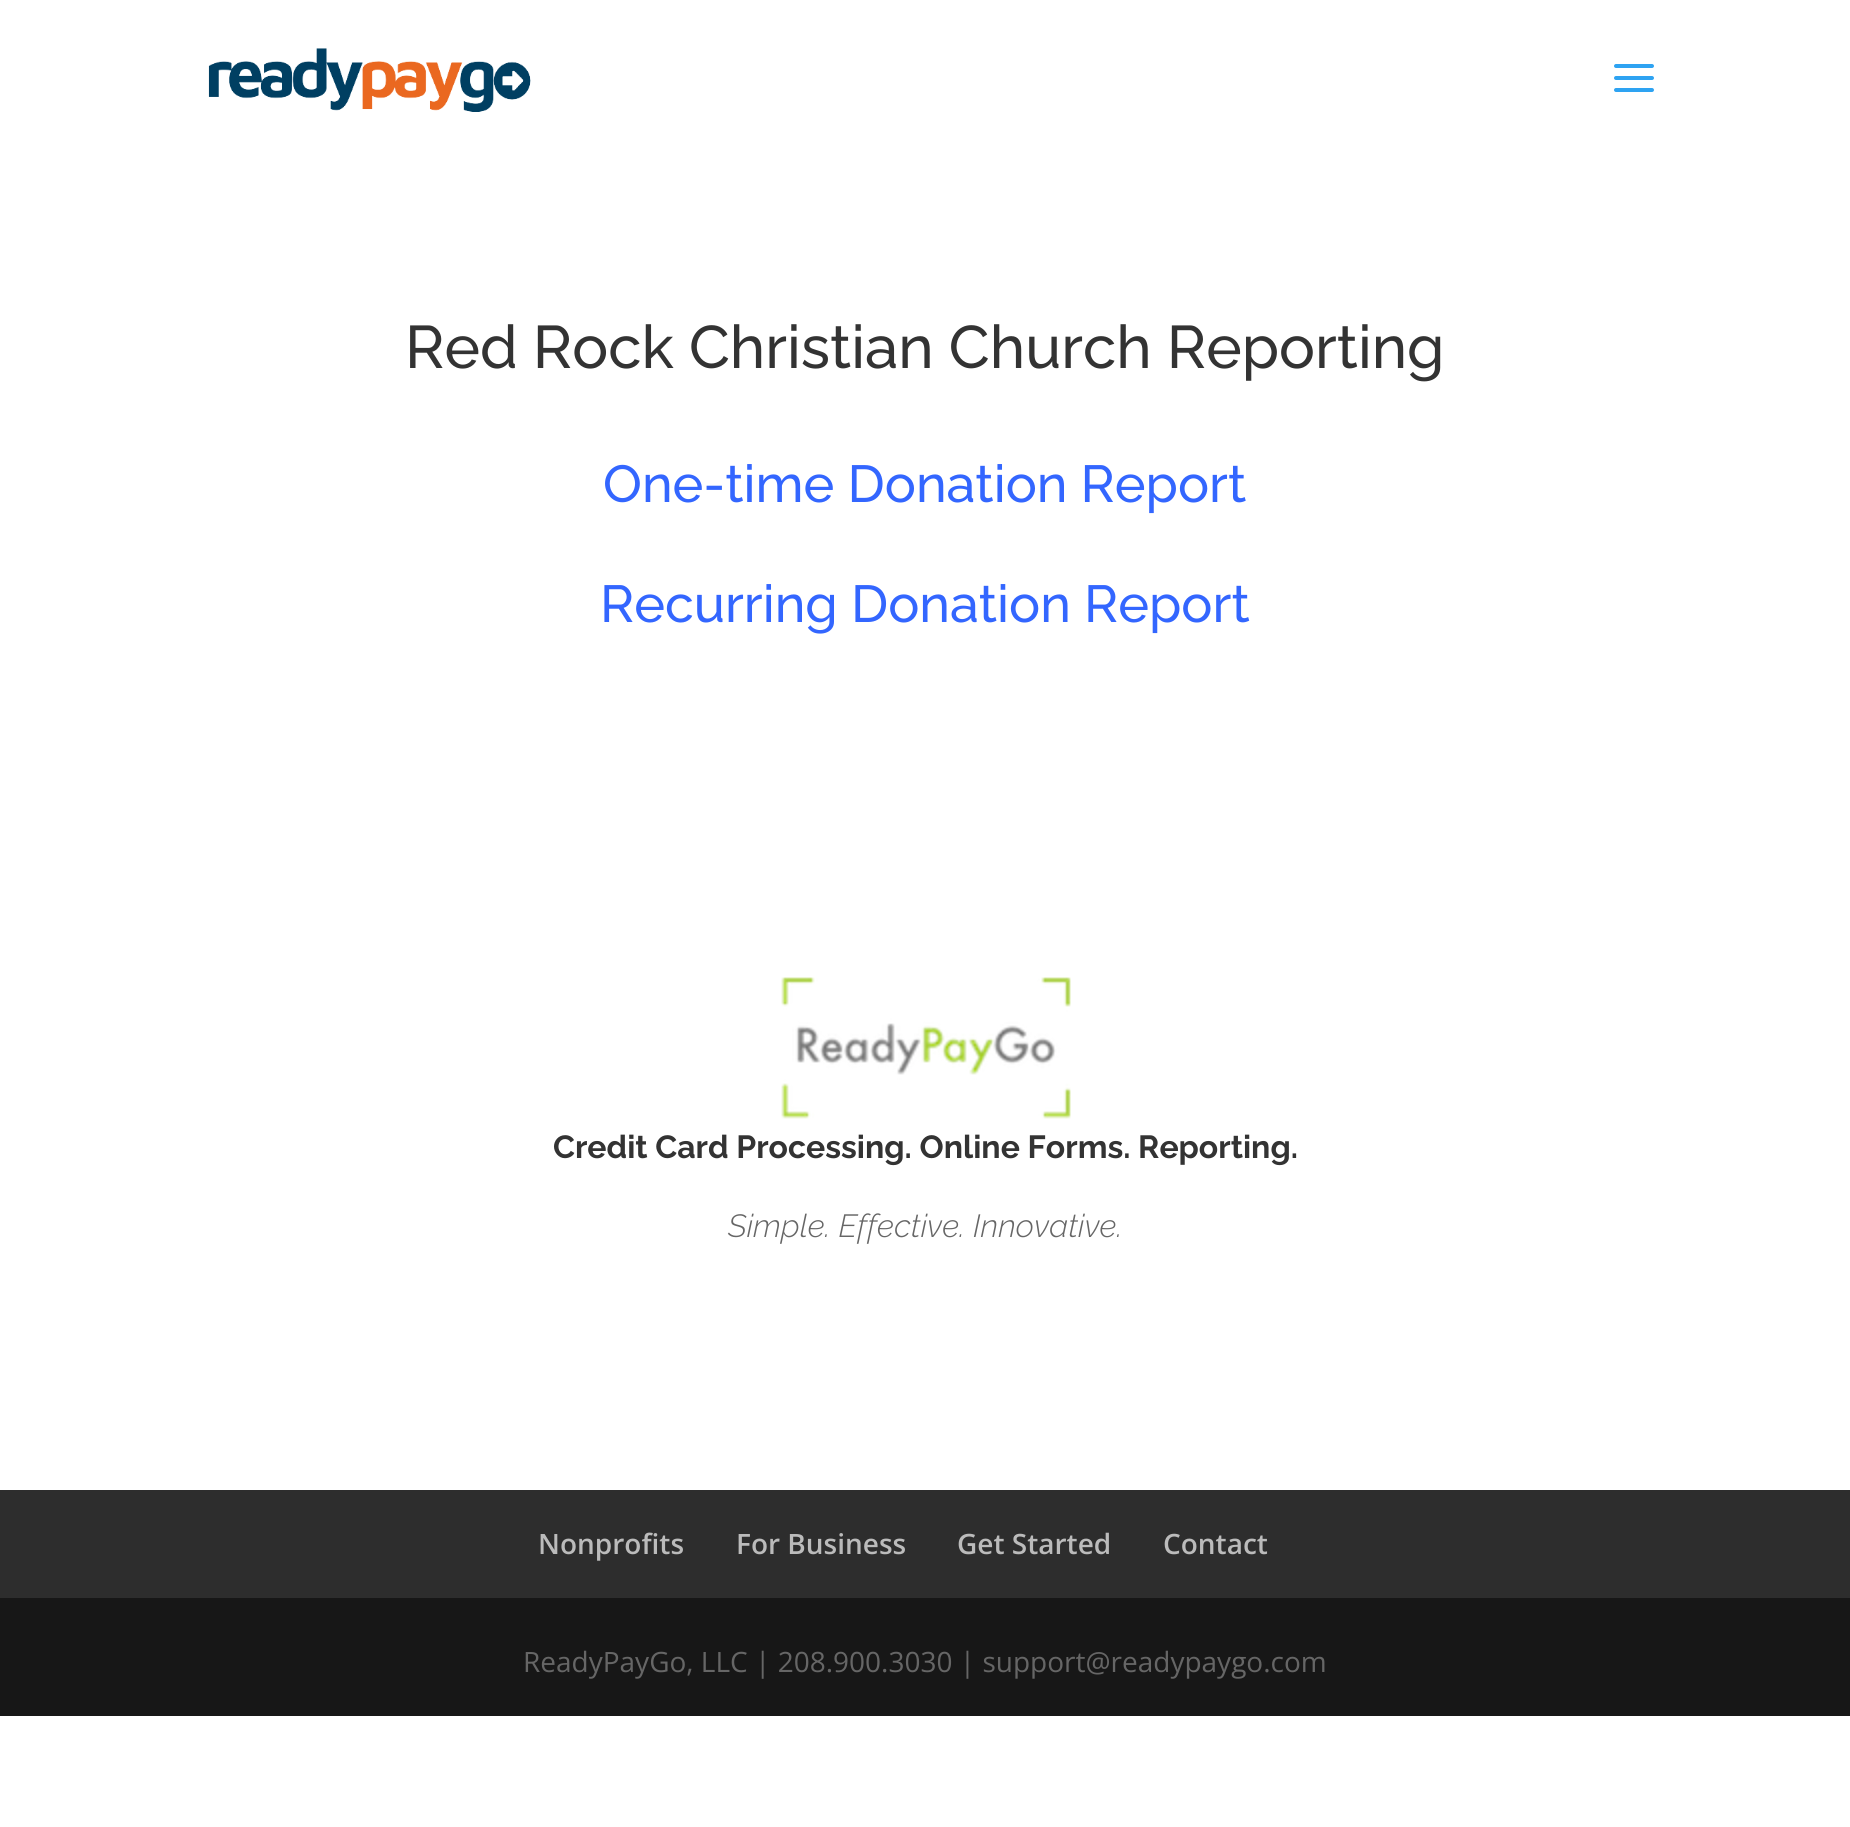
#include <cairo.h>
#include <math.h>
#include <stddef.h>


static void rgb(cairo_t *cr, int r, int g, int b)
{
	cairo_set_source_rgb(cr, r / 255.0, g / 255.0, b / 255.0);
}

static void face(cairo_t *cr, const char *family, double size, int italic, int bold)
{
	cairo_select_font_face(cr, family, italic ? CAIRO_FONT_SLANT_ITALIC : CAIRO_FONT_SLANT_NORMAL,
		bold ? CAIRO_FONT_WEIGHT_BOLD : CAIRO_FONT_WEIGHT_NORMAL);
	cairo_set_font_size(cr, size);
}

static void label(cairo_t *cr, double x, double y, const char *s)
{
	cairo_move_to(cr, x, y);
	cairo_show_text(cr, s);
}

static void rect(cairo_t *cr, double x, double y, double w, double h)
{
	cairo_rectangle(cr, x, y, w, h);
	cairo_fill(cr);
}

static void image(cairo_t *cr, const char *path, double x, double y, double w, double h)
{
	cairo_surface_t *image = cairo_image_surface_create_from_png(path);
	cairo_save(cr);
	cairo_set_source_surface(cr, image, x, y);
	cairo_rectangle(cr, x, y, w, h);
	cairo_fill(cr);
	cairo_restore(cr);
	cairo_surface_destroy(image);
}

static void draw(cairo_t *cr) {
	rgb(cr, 255, 255, 255);
	cairo_paint(cr);
	image(cr, "image0.png", 208, 48, 323, 64);
	image(cr, "image1.png", 1614, 64, 40, 28);
	face(cr, "Raleway Medium", 60, 0, 0);
	rgb(cr, 51, 51, 51);
	label(cr, 405, 368, "Red Rock Christian Church Reporting");
	face(cr, "Raleway Medium", 52, 0, 0);
	rgb(cr, 51, 102, 255);
	label(cr, 603, 502, "One-time Donation Report");
	label(cr, 600, 622, "Recurring Donation Report");
	image(cr, "image2.png", 781, 977, 290, 142);
	face(cr, "Raleway", 32, 0, 1);
	rgb(cr, 51, 51, 51);
	label(cr, 553, 1158, "Credit Card Processing. Online Forms. Reporting.");
	face(cr, "Raleway Light", 32, 1, 0);
	rgb(cr, 102, 102, 102);
	label(cr, 728, 1237, "Simple. Effective. Innovative.");
	rgb(cr, 45, 45, 45);
	rect(cr, 0, 1490, 1850, 108);
	face(cr, "Open Sans SemiBold", 28, 0, 0);
	rgb(cr, 187, 187, 187);
	label(cr, 538, 1554, "Nonprofits");
	label(cr, 736, 1554, "For Business");
	label(cr, 957, 1554, "Get Started");
	label(cr, 1163, 1554, "Contact");
	rgb(cr, 23, 23, 23);
	rect(cr, 0, 1598, 1850, 118);
	face(cr, "Open Sans", 28, 0, 0);
	rgb(cr, 102, 102, 102);
	label(cr, 523, 1672, "ReadyPayGo, LLC | 208.900.3030 | support@readypaygo.com");
}

int main(void) {
	cairo_surface_t *surface = cairo_image_surface_create(CAIRO_FORMAT_RGB24, 1850, 1827);
	cairo_t *cr = cairo_create(surface);
	cairo_font_options_t *options = cairo_font_options_create();
	cairo_font_options_set_hint_metrics(options, CAIRO_HINT_METRICS_OFF);
	cairo_font_options_set_hint_style(options, CAIRO_HINT_STYLE_NONE);
	cairo_set_font_options(cr, options);
	cairo_set_miter_limit(cr, 4);
	draw(cr);
	cairo_surface_write_to_png(surface, "render.png");
	cairo_font_options_destroy(options);
	cairo_destroy(cr);
	cairo_surface_destroy(surface);
	return 0;
}
